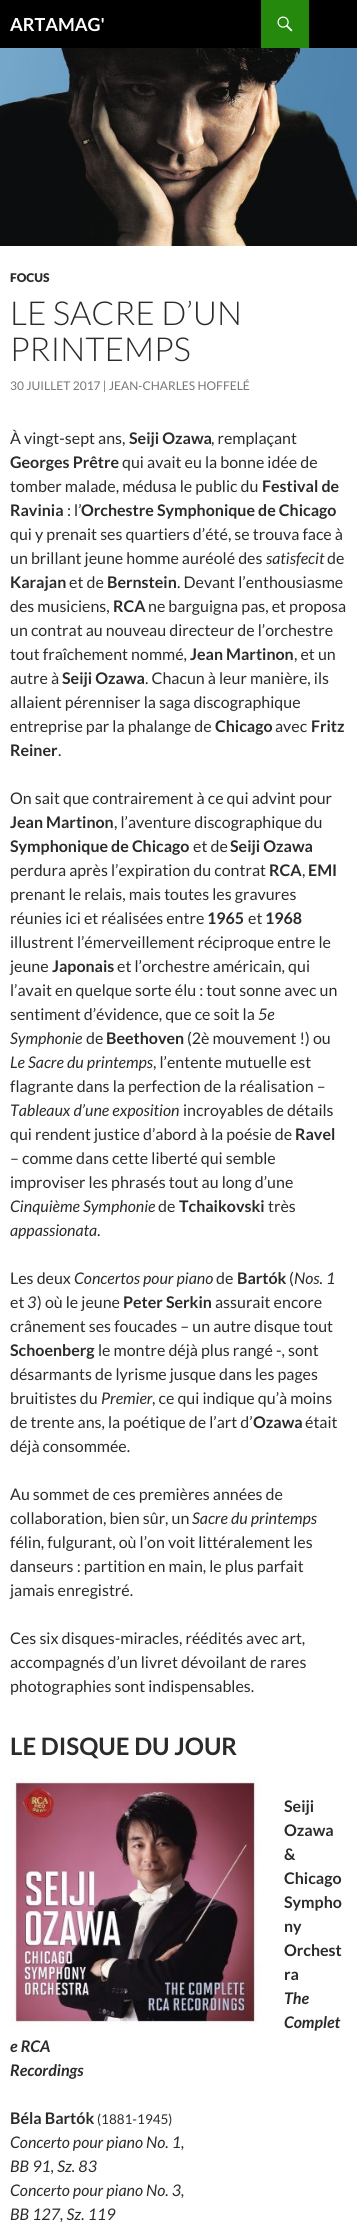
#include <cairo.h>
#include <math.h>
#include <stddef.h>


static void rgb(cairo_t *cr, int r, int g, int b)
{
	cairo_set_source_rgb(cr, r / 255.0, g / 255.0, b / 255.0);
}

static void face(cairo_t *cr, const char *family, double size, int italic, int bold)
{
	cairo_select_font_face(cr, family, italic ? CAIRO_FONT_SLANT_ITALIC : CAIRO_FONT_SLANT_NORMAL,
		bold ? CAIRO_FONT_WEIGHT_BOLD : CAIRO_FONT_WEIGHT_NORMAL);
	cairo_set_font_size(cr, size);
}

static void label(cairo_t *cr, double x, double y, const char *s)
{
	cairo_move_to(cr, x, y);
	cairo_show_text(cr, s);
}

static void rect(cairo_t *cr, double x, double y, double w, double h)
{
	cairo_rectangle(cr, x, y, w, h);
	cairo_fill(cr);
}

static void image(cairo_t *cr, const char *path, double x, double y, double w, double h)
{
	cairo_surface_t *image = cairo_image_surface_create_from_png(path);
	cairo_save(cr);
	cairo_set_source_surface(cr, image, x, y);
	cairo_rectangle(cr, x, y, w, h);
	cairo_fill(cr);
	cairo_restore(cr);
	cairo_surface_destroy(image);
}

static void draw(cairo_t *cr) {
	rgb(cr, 255, 255, 255);
	cairo_paint(cr);
	rgb(cr, 0, 0, 0);
	rect(cr, 0, 0, 357, 48);
	face(cr, "Lato", 18, 0, 1);
	rgb(cr, 255, 255, 255);
	label(cr, 10, 31, "ARTAMAG'");
	rgb(cr, 36, 137, 13);
	rect(cr, 261, 0, 48, 48);
	image(cr, "image0.png", 277, 16, 16, 16);
	image(cr, "image1.png", 0, 48, 357, 198);
	face(cr, "Lato Black", 12, 0, 0);
	rgb(cr, 43, 43, 43);
	label(cr, 10, 282, "FOCUS");
	face(cr, "Lato Light", 33, 0, 0);
	label(cr, 10, 325, "LE SACRE D’UN");
	label(cr, 10, 361, "PRINTEMPS");
	face(cr, "Lato", 12, 0, 0);
	rgb(cr, 118, 118, 118);
	label(cr, 10, 390, "30 JUILLET 2017 | JEAN-CHARLES HOFFELÉ");
	face(cr, "Lato", 16, 0, 0);
	rgb(cr, 43, 43, 43);
	label(cr, 10, 444, "À vingt-sept ans,");
	face(cr, "Lato", 16, 0, 1);
	label(cr, 129, 444, "Seiji Ozawa");
	face(cr, "Lato", 16, 0, 0);
	label(cr, 211, 444, ", remplaçant");
	face(cr, "Lato", 16, 0, 1);
	label(cr, 10, 468, "Georges Prêtre");
	face(cr, "Lato", 16, 0, 0);
	label(cr, 122, 468, "qui avait eu la bonne idée de");
	label(cr, 10, 492, "tomber malade, médusa le public du");
	face(cr, "Lato", 16, 0, 1);
	label(cr, 262, 492, "Festival de");
	label(cr, 10, 516, "Ravinia");
	face(cr, "Lato", 16, 0, 0);
	label(cr, 67, 516, ": l’");
	face(cr, "Lato", 16, 0, 1);
	label(cr, 81, 516, "Orchestre Symphonique de Chicago");
	face(cr, "Lato", 16, 0, 0);
	label(cr, 10, 540, "qui y prenait ses quartiers d’été, se trouva face à");
	label(cr, 10, 564, "un brillant jeune homme auréolé des");
	face(cr, "Lato", 16, 1, 0);
	label(cr, 266, 564, "satisfecit");
	face(cr, "Lato", 16, 0, 0);
	label(cr, 327, 564, "de");
	face(cr, "Lato", 16, 0, 1);
	label(cr, 10, 588, "Karajan");
	face(cr, "Lato", 16, 0, 0);
	label(cr, 69, 588, "et de");
	face(cr, "Lato", 16, 0, 1);
	label(cr, 107, 588, "Bernstein");
	face(cr, "Lato", 16, 0, 0);
	label(cr, 177, 588, ". Devant l’enthousiasme");
	label(cr, 10, 612, "des musiciens,");
	face(cr, "Lato", 16, 0, 1);
	label(cr, 113, 612, "RCA");
	face(cr, "Lato", 16, 0, 0);
	label(cr, 148, 612, "ne barguigna pas, et proposa");
	label(cr, 10, 636, "un contrat au nouveau directeur de l’orchestre");
	label(cr, 10, 660, "tout fraîchement nommé,");
	face(cr, "Lato", 16, 0, 1);
	label(cr, 190, 660, "Jean Martinon");
	face(cr, "Lato", 16, 0, 0);
	label(cr, 294, 660, ", et un");
	label(cr, 10, 684, "autre à");
	face(cr, "Lato", 16, 0, 1);
	label(cr, 62, 684, "Seiji Ozawa");
	face(cr, "Lato", 16, 0, 0);
	label(cr, 145, 684, ". Chacun à leur manière, ils");
	label(cr, 10, 708, "allaient pérenniser la saga discographique");
	label(cr, 10, 732, "entreprise par la phalange de");
	face(cr, "Lato", 16, 0, 1);
	label(cr, 215, 732, "Chicago");
	face(cr, "Lato", 16, 0, 0);
	label(cr, 275, 732, "avec");
	face(cr, "Lato", 16, 0, 1);
	label(cr, 311, 732, "Fritz");
	label(cr, 10, 756, "Reiner");
	face(cr, "Lato", 16, 0, 0);
	label(cr, 58, 756, ".");
	label(cr, 10, 804, "On sait que contrairement à ce qui advint pour");
	face(cr, "Lato", 16, 0, 1);
	label(cr, 10, 828, "Jean Martinon");
	face(cr, "Lato", 16, 0, 0);
	label(cr, 114, 828, ", l’aventure discographique du");
	face(cr, "Lato", 16, 0, 1);
	label(cr, 10, 852, "Symphonique de Chicago");
	face(cr, "Lato", 16, 0, 0);
	label(cr, 193, 852, "et de");
	face(cr, "Lato", 16, 0, 1);
	label(cr, 230, 852, "Seiji Ozawa");
	face(cr, "Lato", 16, 0, 0);
	label(cr, 10, 876, "perdura après l’expiration du contrat");
	face(cr, "Lato", 16, 0, 1);
	label(cr, 269, 876, "RCA");
	label(cr, 308, 876, "EMI");
	face(cr, "Lato", 16, 0, 0);
	label(cr, 302, 876, ",");
	label(cr, 10, 900, "prenant le relais, mais toutes les gravures");
	label(cr, 10, 924, "réunies ici et réalisées entre");
	face(cr, "Lato", 16, 0, 1);
	label(cr, 207, 924, "1965");
	face(cr, "Lato", 16, 0, 0);
	label(cr, 248, 924, "et");
	face(cr, "Lato", 16, 0, 1);
	label(cr, 265, 924, "1968");
	face(cr, "Lato", 16, 0, 0);
	label(cr, 10, 948, "illustrent l’émerveillement réciproque entre le");
	label(cr, 10, 972, "jeune");
	face(cr, "Lato", 16, 0, 1);
	label(cr, 52, 972, "Japonais");
	face(cr, "Lato", 16, 0, 0);
	label(cr, 117, 972, "et l’orchestre américain, qui");
	label(cr, 10, 996, "l’avait en quelque sorte élu : tout sonne avec un");
	label(cr, 10, 1020, "sentiment d’évidence, que ce soit la");
	face(cr, "Lato", 16, 1, 0);
	label(cr, 258, 1020, "5e");
	label(cr, 10, 1044, "Symphonie");
	face(cr, "Lato", 16, 0, 0);
	label(cr, 86, 1044, "de");
	face(cr, "Lato", 16, 0, 1);
	label(cr, 106, 1044, "Beethoven");
	face(cr, "Lato", 16, 0, 0);
	label(cr, 187, 1044, "(2è mouvement !) ou");
	face(cr, "Lato", 16, 1, 0);
	label(cr, 10, 1068, "Le Sacre du printemps");
	face(cr, "Lato", 16, 0, 0);
	label(cr, 153, 1068, ", l’entente mutuelle est");
	label(cr, 10, 1092, "flagrante dans la perfection de la réalisation –");
	face(cr, "Lato", 16, 1, 0);
	label(cr, 10, 1116, "Tableaux d’une exposition");
	face(cr, "Lato", 16, 0, 0);
	label(cr, 183, 1116, "incroyables de détails");
	label(cr, 10, 1140, "qui rendent justice d’abord à la poésie de");
	face(cr, "Lato", 16, 0, 1);
	label(cr, 295, 1140, "Ravel");
	face(cr, "Lato", 16, 0, 0);
	label(cr, 10, 1164, "– comme dans cette liberté qui semble");
	label(cr, 10, 1188, "improviser les phrasés tout au long d’une");
	face(cr, "Lato", 16, 1, 0);
	label(cr, 10, 1212, "Cinquième Symphonie");
	face(cr, "Lato", 16, 0, 0);
	label(cr, 158, 1212, "de");
	face(cr, "Lato", 16, 0, 1);
	label(cr, 179, 1212, "Tchaikovski");
	face(cr, "Lato", 16, 0, 0);
	label(cr, 268, 1212, "très");
	face(cr, "Lato", 16, 1, 0);
	label(cr, 10, 1236, "appassionata");
	face(cr, "Lato", 16, 0, 0);
	label(cr, 97, 1236, ".");
	label(cr, 10, 1284, "Les deux");
	face(cr, "Lato", 16, 1, 0);
	label(cr, 74, 1284, "Concertos pour piano");
	face(cr, "Lato", 16, 0, 0);
	label(cr, 216, 1284, "de");
	face(cr, "Lato", 16, 0, 1);
	label(cr, 237, 1284, "Bartók");
	face(cr, "Lato", 16, 0, 0);
	label(cr, 289, 1284, "(");
	face(cr, "Lato", 16, 1, 0);
	label(cr, 294, 1284, "Nos. 1");
	face(cr, "Lato", 16, 0, 0);
	label(cr, 10, 1308, "et");
	face(cr, "Lato", 16, 1, 0);
	label(cr, 27, 1308, "3");
	face(cr, "Lato", 16, 0, 0);
	label(cr, 37, 1308, ") où le jeune");
	face(cr, "Lato", 16, 0, 1);
	label(cr, 123, 1308, "Peter Serkin");
	face(cr, "Lato", 16, 0, 0);
	label(cr, 215, 1308, "assurait encore");
	label(cr, 10, 1332, "crânement ses foucades – un autre disque tout");
	face(cr, "Lato", 16, 0, 1);
	label(cr, 10, 1356, "Schoenberg");
	face(cr, "Lato", 16, 0, 0);
	label(cr, 98, 1356, "le montre déjà plus rangé -, sont");
	label(cr, 10, 1380, "désarmants de lyrisme jusque dans les pages");
	label(cr, 10, 1404, "bruitistes du");
	face(cr, "Lato", 16, 1, 0);
	label(cr, 101, 1404, "Premier");
	face(cr, "Lato", 16, 0, 0);
	label(cr, 152, 1404, ", ce qui indique qu’à moins");
	label(cr, 10, 1428, "de trente ans, la poétique de l’art d’");
	face(cr, "Lato", 16, 0, 1);
	label(cr, 253, 1428, "Ozawa");
	face(cr, "Lato", 16, 0, 0);
	label(cr, 305, 1428, "était");
	label(cr, 10, 1452, "déjà consommée.");
	label(cr, 10, 1500, "Au sommet de ces premières années de");
	label(cr, 10, 1524, "collaboration, bien sûr, un");
	face(cr, "Lato", 16, 1, 0);
	label(cr, 192, 1524, "Sacre du printemps");
	face(cr, "Lato", 16, 0, 0);
	label(cr, 10, 1548, "félin, fulgurant, où l’on voit littéralement les");
	label(cr, 10, 1572, "danseurs : partition en main, le plus parfait");
	label(cr, 10, 1596, "jamais enregistré.");
	label(cr, 10, 1644, "Ces six disques-miracles, réédités avec art,");
	label(cr, 10, 1668, "accompagnés d’un livret dévoilant de rares");
	label(cr, 10, 1692, "photographies sont indispensables.");
	face(cr, "Lato", 24, 0, 1);
	label(cr, 10, 1755, "LE DISQUE DU JOUR");
	image(cr, "image2.png", 10, 1777, 250, 250);
	face(cr, "Lato", 16, 0, 1);
	label(cr, 284, 1812, "Seiji");
	label(cr, 284, 1836, "Ozawa");
	label(cr, 284, 1860, "&");
	label(cr, 284, 1884, "Chicago");
	label(cr, 284, 1908, "Sympho");
	label(cr, 284, 1932, "ny");
	label(cr, 284, 1956, "Orchest");
	label(cr, 284, 1980, "ra");
	face(cr, "Lato", 16, 1, 1);
	label(cr, 284, 2004, "The");
	label(cr, 284, 2028, "Complet");
	label(cr, 10, 2052, "e RCA");
	label(cr, 10, 2076, "Recordings");
	face(cr, "Lato", 16, 0, 1);
	label(cr, 10, 2124, "Béla Bartók");
	face(cr, "Lato", 13.5, 0, 0);
	label(cr, 97, 2124, "(1881-1945)");
	face(cr, "Lato", 16, 1, 0);
	label(cr, 10, 2148, "Concerto pour piano No. 1,");
	label(cr, 10, 2172, "BB 91, Sz. 83");
	label(cr, 10, 2196, "Concerto pour piano No. 3,");
	label(cr, 10, 2220, "BB 127, Sz. 119");
}

int main(void) {
	cairo_surface_t *surface = cairo_image_surface_create(CAIRO_FORMAT_RGB24, 357, 2232);
	cairo_t *cr = cairo_create(surface);
	cairo_font_options_t *options = cairo_font_options_create();
	cairo_font_options_set_hint_metrics(options, CAIRO_HINT_METRICS_OFF);
	cairo_font_options_set_hint_style(options, CAIRO_HINT_STYLE_NONE);
	cairo_set_font_options(cr, options);
	cairo_set_miter_limit(cr, 4);
	draw(cr);
	cairo_surface_write_to_png(surface, "render.png");
	cairo_font_options_destroy(options);
	cairo_destroy(cr);
	cairo_surface_destroy(surface);
	return 0;
}
